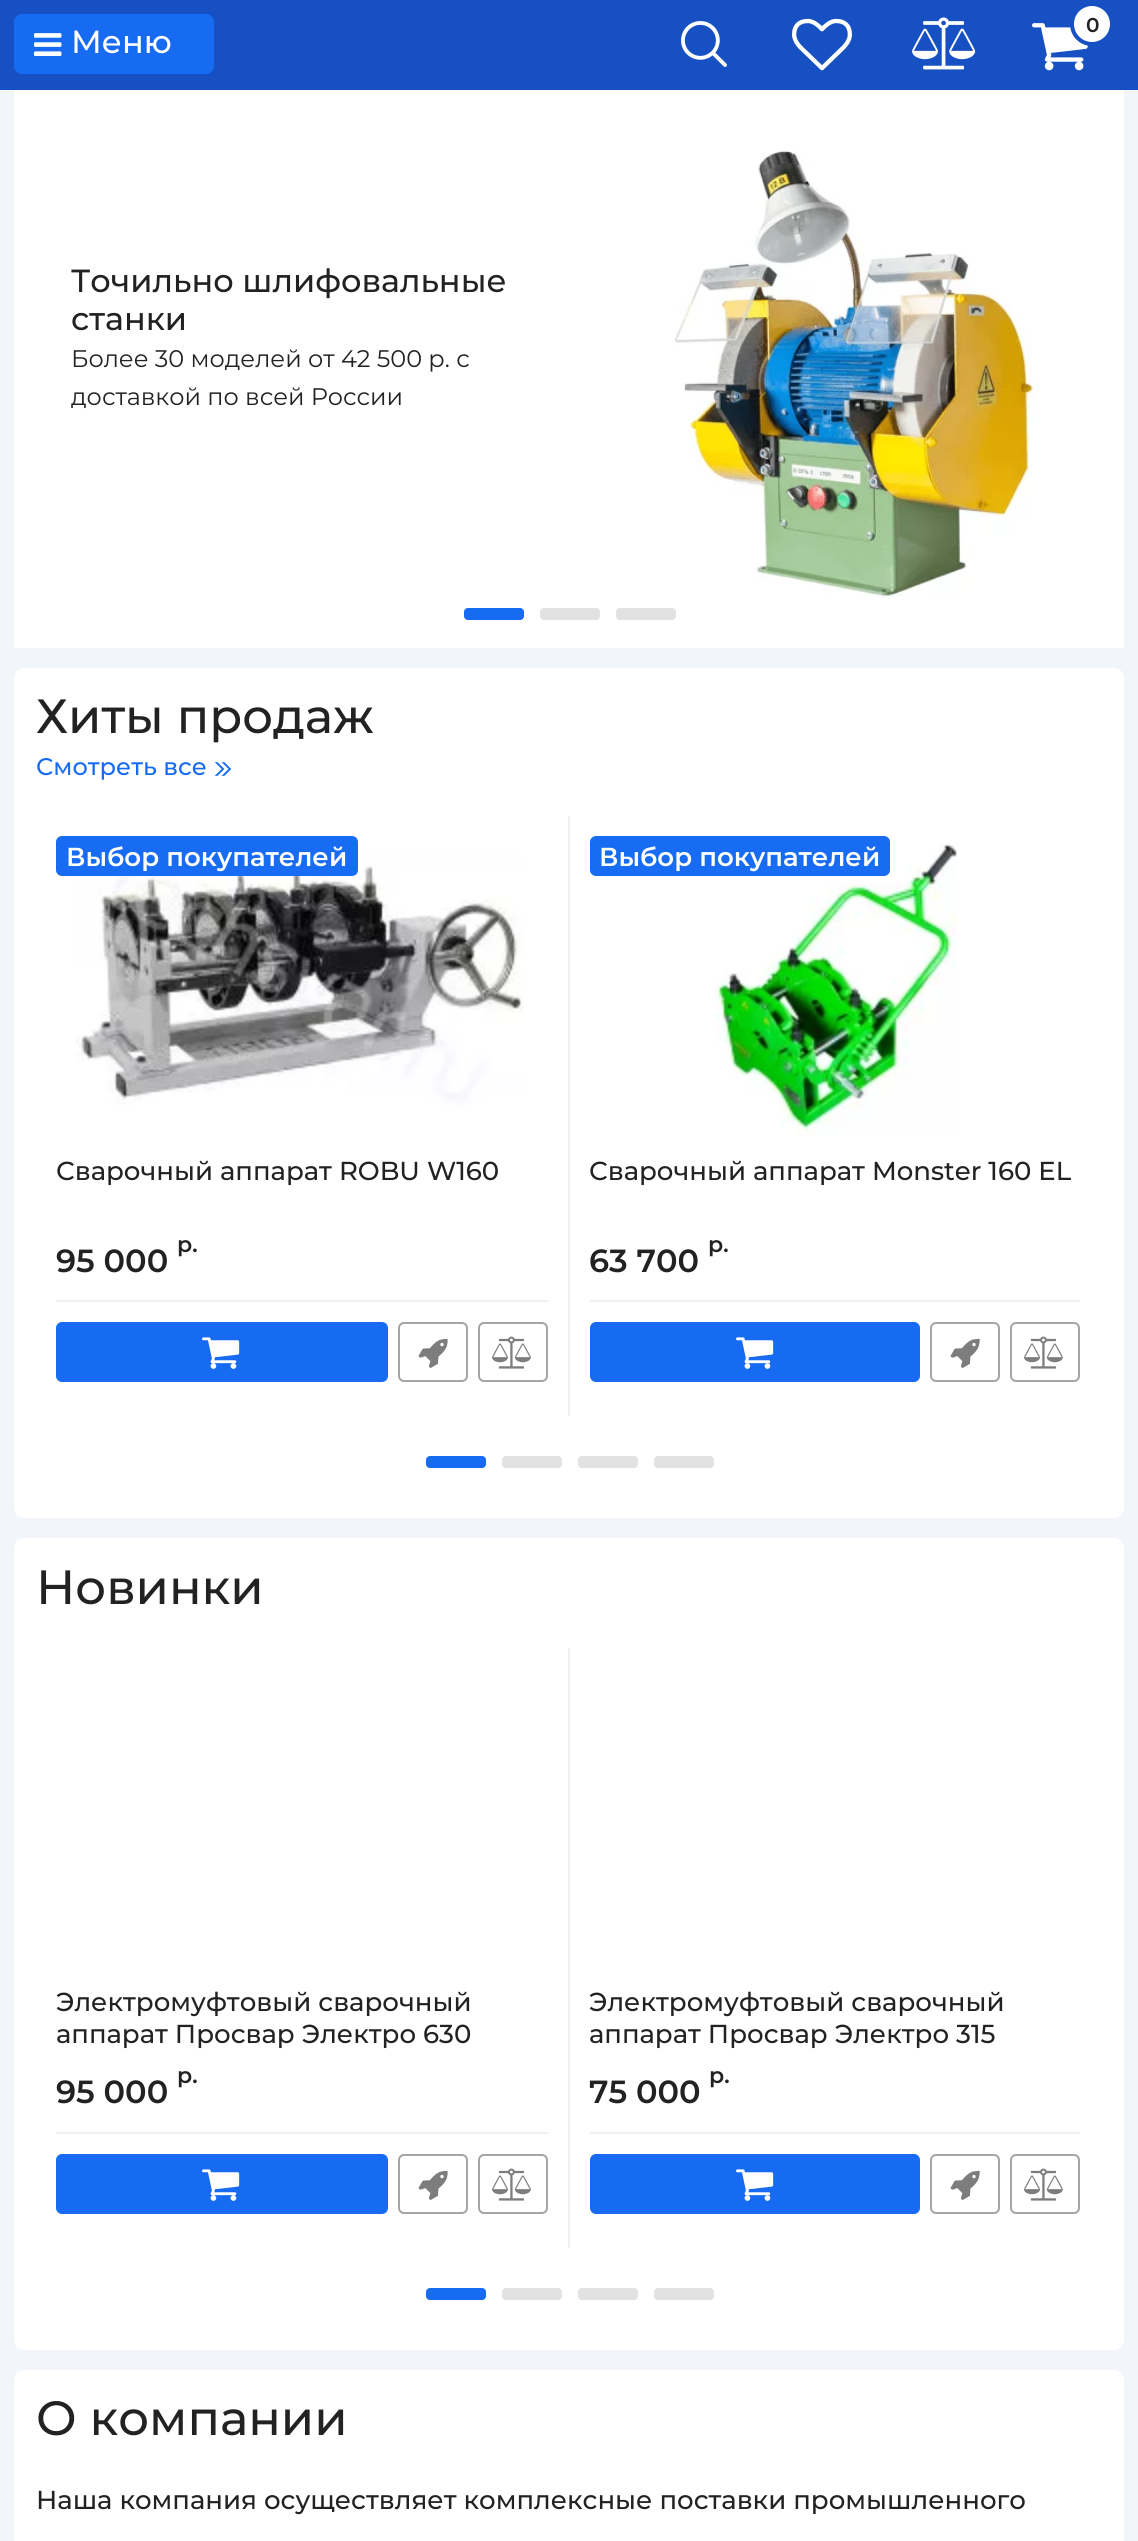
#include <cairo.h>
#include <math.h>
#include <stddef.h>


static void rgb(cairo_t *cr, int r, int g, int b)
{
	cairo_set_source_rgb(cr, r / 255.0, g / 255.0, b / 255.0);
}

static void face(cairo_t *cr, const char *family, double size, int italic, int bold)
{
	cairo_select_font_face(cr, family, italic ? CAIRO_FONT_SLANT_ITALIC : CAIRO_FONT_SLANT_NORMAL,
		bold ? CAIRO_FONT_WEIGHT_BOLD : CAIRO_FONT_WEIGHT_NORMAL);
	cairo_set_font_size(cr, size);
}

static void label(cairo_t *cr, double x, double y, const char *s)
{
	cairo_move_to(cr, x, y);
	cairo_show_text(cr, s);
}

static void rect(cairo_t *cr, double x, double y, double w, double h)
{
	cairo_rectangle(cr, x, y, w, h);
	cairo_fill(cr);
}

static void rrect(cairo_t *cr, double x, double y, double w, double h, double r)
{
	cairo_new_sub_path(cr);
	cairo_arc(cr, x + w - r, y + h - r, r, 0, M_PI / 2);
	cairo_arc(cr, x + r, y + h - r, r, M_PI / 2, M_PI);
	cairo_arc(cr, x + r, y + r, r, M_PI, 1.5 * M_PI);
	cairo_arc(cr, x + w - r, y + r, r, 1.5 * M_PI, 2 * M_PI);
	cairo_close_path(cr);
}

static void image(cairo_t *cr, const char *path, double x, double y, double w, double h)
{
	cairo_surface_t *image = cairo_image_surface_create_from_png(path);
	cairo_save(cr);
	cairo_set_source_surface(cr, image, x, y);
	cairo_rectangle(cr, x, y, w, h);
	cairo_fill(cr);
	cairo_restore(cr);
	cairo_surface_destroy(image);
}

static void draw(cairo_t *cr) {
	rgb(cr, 242, 246, 250);
	cairo_paint(cr);
	rgb(cr, 23, 80, 195);
	rect(cr, 0, 0, 1138, 90);
	image(cr, "image0.png", 681, 21, 46, 46);
	image(cr, "image1.png", 792, 18, 60, 53);
	image(cr, "image2.png", 912, 17, 64, 53);
	image(cr, "image3.png", 1032, 23, 56, 48);
	rgb(cr, 255, 255, 255);
	cairo_arc(cr, 1092, 24, 20, 0, 2 * M_PI);
	cairo_fill_preserve(cr);
	rgb(cr, 23, 80, 195);
	cairo_set_line_width(cr, 4);
	cairo_stroke(cr);
	face(cr, "Montserrat SemiBold", 20, 0, 0);
	rgb(cr, 34, 34, 34);
	label(cr, 1086, 32, "0");
	rgb(cr, 23, 107, 243);
	rrect(cr, 14, 14, 200, 60, 8);
	cairo_fill(cr);
	image(cr, "image4.png", 34, 33, 28, 23);
	face(cr, "Montserrat Medium", 32, 0, 0);
	rgb(cr, 255, 255, 255);
	label(cr, 71, 53, "Меню");
	rect(cr, 14, 90, 1110, 558);
	rgb(cr, 34, 34, 34);
	label(cr, 71, 292, "Точильно шлифовальные");
	label(cr, 71, 330, "станки");
	face(cr, "Montserrat", 24, 0, 0);
	label(cr, 71, 367, "Более 30 моделей от 42 500 р. с");
	label(cr, 71, 405, "доставкой по всей России");
	image(cr, "image5.png", 674, 150, 365, 447);
	rgb(cr, 23, 107, 243);
	rrect(cr, 464, 608, 60, 12, 4);
	cairo_fill(cr);
	rgb(cr, 226, 226, 226);
	rrect(cr, 540, 608, 60, 12, 4);
	cairo_fill(cr);
	rrect(cr, 616, 608, 60, 12, 4);
	cairo_fill(cr);
	rgb(cr, 255, 255, 255);
	rrect(cr, 14, 668, 1110, 850, 10);
	cairo_fill(cr);
	face(cr, "Montserrat Medium", 48, 0, 0);
	rgb(cr, 34, 34, 34);
	label(cr, 36, 733, "Хиты продаж");
	face(cr, "Montserrat Medium", 24, 0, 0);
	rgb(cr, 23, 107, 243);
	label(cr, 36, 775, "Смотреть все");
	image(cr, "image6.png", 214, 762, 18, 14);
	rgb(cr, 240, 240, 240);
	rect(cr, 568, 816, 2, 600);
	image(cr, "image7.png", 76, 854, 448, 251);
	rgb(cr, 23, 108, 243);
	rrect(cr, 56, 836, 302, 40, 6);
	cairo_fill(cr);
	face(cr, "Montserrat SemiBold", 26, 0, 0);
	rgb(cr, 255, 255, 255);
	label(cr, 66, 866, "Выбор покупателей");
	face(cr, "Montserrat Medium", 26, 0, 0);
	rgb(cr, 34, 34, 34);
	label(cr, 56, 1180, "Сварочный аппарат ROBU W160");
	face(cr, "Montserrat SemiBold", 32, 0, 0);
	label(cr, 56, 1272, "95 000");
	face(cr, "Montserrat SemiBold", 22, 0, 0);
	label(cr, 177, 1252, "р.");
	rgb(cr, 240, 240, 240);
	rect(cr, 56, 1300, 492, 2);
	rgb(cr, 23, 107, 243);
	rrect(cr, 57, 1323, 330, 58, 5);
	cairo_fill_preserve(cr);
	cairo_set_line_width(cr, 2);
	cairo_stroke(cr);
	image(cr, "image8.png", 202, 1337, 38, 32);
	rrect(cr, 399, 1323, 68, 58, 5);
	rgb(cr, 165, 165, 165);
	cairo_stroke(cr);
	image(cr, "image9.png", 418, 1338, 30, 30);
	rrect(cr, 479, 1323, 68, 58, 5);
	cairo_stroke(cr);
	image(cr, "image10.png", 492, 1336, 39, 33);
	image(cr, "image11.png", 715, 843, 242, 293);
	rgb(cr, 23, 108, 243);
	rrect(cr, 590, 836, 300, 40, 6);
	cairo_fill(cr);
	face(cr, "Montserrat SemiBold", 26, 0, 0);
	rgb(cr, 255, 255, 255);
	label(cr, 599, 866, "Выбор покупателей");
	face(cr, "Montserrat Medium", 26, 0, 0);
	rgb(cr, 34, 34, 34);
	label(cr, 589, 1180, "Сварочный аппарат Monster 160 EL");
	face(cr, "Montserrat SemiBold", 32, 0, 0);
	label(cr, 589, 1272, "63 700");
	face(cr, "Montserrat SemiBold", 22, 0, 0);
	label(cr, 708, 1252, "р.");
	rgb(cr, 240, 240, 240);
	rect(cr, 590, 1300, 490, 2);
	rgb(cr, 23, 107, 243);
	rrect(cr, 591, 1323, 328, 58, 5);
	cairo_fill_preserve(cr);
	cairo_stroke(cr);
	image(cr, "image8.png", 736, 1337, 38, 32);
	rrect(cr, 931, 1323, 68, 58, 5);
	rgb(cr, 165, 165, 165);
	cairo_stroke(cr);
	image(cr, "image9.png", 950, 1338, 30, 30);
	rrect(cr, 1011, 1323, 68, 58, 5);
	cairo_stroke(cr);
	image(cr, "image10.png", 1024, 1336, 39, 33);
	rgb(cr, 23, 107, 243);
	rrect(cr, 426, 1456, 60, 12, 4);
	cairo_fill(cr);
	rgb(cr, 226, 226, 226);
	rrect(cr, 502, 1456, 60, 12, 4);
	cairo_fill(cr);
	rrect(cr, 578, 1456, 60, 12, 4);
	cairo_fill(cr);
	rrect(cr, 654, 1456, 60, 12, 4);
	cairo_fill(cr);
	rgb(cr, 255, 255, 255);
	rrect(cr, 14, 1538, 1110, 812, 10);
	cairo_fill(cr);
	face(cr, "Montserrat Medium", 48, 0, 0);
	rgb(cr, 34, 34, 34);
	label(cr, 36, 1604, "Новинки");
	rgb(cr, 240, 240, 240);
	rect(cr, 568, 1648, 2, 600);
	face(cr, "Montserrat Medium", 26, 0, 0);
	rgb(cr, 34, 34, 34);
	label(cr, 56, 2011, "Электромуфтовый сварочный");
	label(cr, 56, 2043, "аппарат Просвар Электро 630");
	face(cr, "Montserrat SemiBold", 32, 0, 0);
	label(cr, 56, 2103, "95 000");
	face(cr, "Montserrat SemiBold", 22, 0, 0);
	label(cr, 177, 2083, "р.");
	rgb(cr, 240, 240, 240);
	rect(cr, 56, 2132, 492, 2);
	rgb(cr, 23, 107, 243);
	rrect(cr, 57, 2155, 330, 58, 5);
	cairo_fill_preserve(cr);
	cairo_stroke(cr);
	image(cr, "image8.png", 202, 2169, 38, 32);
	rrect(cr, 399, 2155, 68, 58, 5);
	rgb(cr, 165, 165, 165);
	cairo_stroke(cr);
	image(cr, "image9.png", 418, 2170, 30, 30);
	rrect(cr, 479, 2155, 68, 58, 5);
	cairo_stroke(cr);
	image(cr, "image10.png", 492, 2168, 39, 33);
	face(cr, "Montserrat Medium", 26, 0, 0);
	rgb(cr, 34, 34, 34);
	label(cr, 589, 2011, "Электромуфтовый сварочный");
	label(cr, 589, 2043, "аппарат Просвар Электро 315");
	face(cr, "Montserrat SemiBold", 32, 0, 0);
	label(cr, 589, 2103, "75 000");
	face(cr, "Montserrat SemiBold", 22, 0, 0);
	label(cr, 709, 2083, "р.");
	rgb(cr, 240, 240, 240);
	rect(cr, 590, 2132, 490, 2);
	rgb(cr, 23, 107, 243);
	rrect(cr, 591, 2155, 328, 58, 5);
	cairo_fill_preserve(cr);
	cairo_stroke(cr);
	image(cr, "image8.png", 736, 2169, 38, 32);
	rrect(cr, 931, 2155, 68, 58, 5);
	rgb(cr, 165, 165, 165);
	cairo_stroke(cr);
	image(cr, "image9.png", 950, 2170, 30, 30);
	rrect(cr, 1011, 2155, 68, 58, 5);
	cairo_stroke(cr);
	image(cr, "image10.png", 1024, 2168, 39, 33);
	rgb(cr, 23, 107, 243);
	rrect(cr, 426, 2288, 60, 12, 4);
	cairo_fill(cr);
	rgb(cr, 226, 226, 226);
	rrect(cr, 502, 2288, 60, 12, 4);
	cairo_fill(cr);
	rrect(cr, 578, 2288, 60, 12, 4);
	cairo_fill(cr);
	rrect(cr, 654, 2288, 60, 12, 4);
	cairo_fill(cr);
	rgb(cr, 255, 255, 255);
	rrect(cr, 14, 2370, 1110, 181, 10);
	cairo_fill(cr);
	face(cr, "Montserrat Medium", 48, 0, 0);
	rgb(cr, 34, 34, 34);
	label(cr, 36, 2435, "О компании");
	face(cr, "Montserrat Medium", 26, 0, 0);
	label(cr, 36, 2509, "Наша компания осуществляет комплексные поставки промышленного");
}

int main(void) {
	cairo_surface_t *surface = cairo_image_surface_create(CAIRO_FORMAT_RGB24, 1138, 2541);
	cairo_t *cr = cairo_create(surface);
	cairo_font_options_t *options = cairo_font_options_create();
	cairo_font_options_set_hint_metrics(options, CAIRO_HINT_METRICS_OFF);
	cairo_font_options_set_hint_style(options, CAIRO_HINT_STYLE_NONE);
	cairo_set_font_options(cr, options);
	cairo_set_miter_limit(cr, 4);
	draw(cr);
	cairo_surface_write_to_png(surface, "render.png");
	cairo_font_options_destroy(options);
	cairo_destroy(cr);
	cairo_surface_destroy(surface);
	return 0;
}
